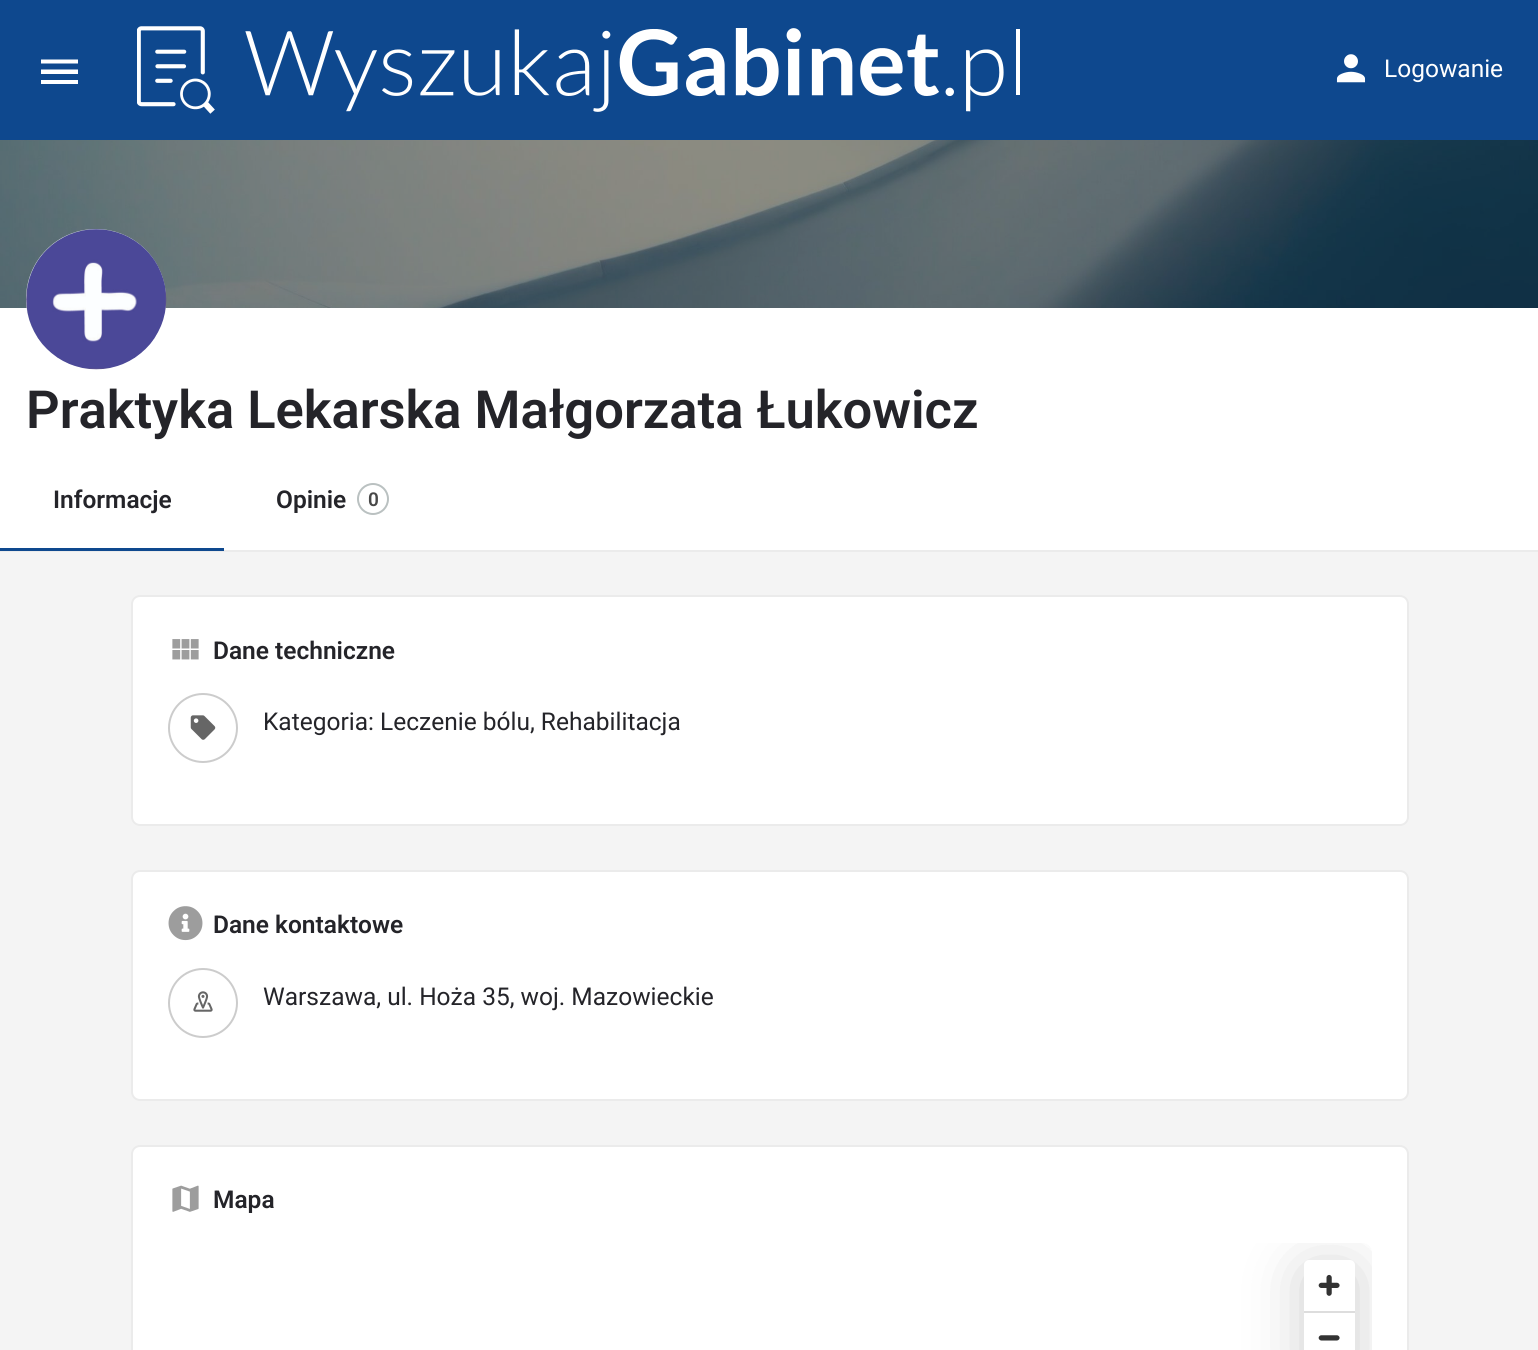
#include <cairo.h>
#include <math.h>
#include <stddef.h>


static void rgb(cairo_t *cr, int r, int g, int b)
{
	cairo_set_source_rgb(cr, r / 255.0, g / 255.0, b / 255.0);
}

static void face(cairo_t *cr, const char *family, double size, int italic, int bold)
{
	cairo_select_font_face(cr, family, italic ? CAIRO_FONT_SLANT_ITALIC : CAIRO_FONT_SLANT_NORMAL,
		bold ? CAIRO_FONT_WEIGHT_BOLD : CAIRO_FONT_WEIGHT_NORMAL);
	cairo_set_font_size(cr, size);
}

static void label(cairo_t *cr, double x, double y, const char *s)
{
	cairo_move_to(cr, x, y);
	cairo_show_text(cr, s);
}

static void rect(cairo_t *cr, double x, double y, double w, double h)
{
	cairo_rectangle(cr, x, y, w, h);
	cairo_fill(cr);
}

static void rrect(cairo_t *cr, double x, double y, double w, double h, double r)
{
	cairo_new_sub_path(cr);
	cairo_arc(cr, x + w - r, y + h - r, r, 0, M_PI / 2);
	cairo_arc(cr, x + r, y + h - r, r, M_PI / 2, M_PI);
	cairo_arc(cr, x + r, y + r, r, M_PI, 1.5 * M_PI);
	cairo_arc(cr, x + w - r, y + r, r, 1.5 * M_PI, 2 * M_PI);
	cairo_close_path(cr);
}

static void soft_shadow(cairo_t *cr, double x, double y, double w, double h, double r, double blur, double alpha)
{
	cairo_push_group_with_content(cr, CAIRO_CONTENT_ALPHA);
	cairo_set_operator(cr, CAIRO_OPERATOR_SOURCE);
	for (int i = 15; i >= -15 && fmin(w, h) + blur * i / 3 > 0; i -= 2) {
		double e = blur * i / 6;
		cairo_set_source_rgba(cr, 0, 0, 0, alpha * erfc((i - 1) / 8.5) / 2);
		rrect(cr, x - e, y - e, w + 2 * e, h + 2 * e, fmax(0, fmin(r + e + blur * .6, fmin(w, h) / 2 + e)));
		cairo_fill(cr);
	}
	cairo_pattern_t *soft = cairo_pop_group(cr);
	cairo_mask(cr, soft);
	cairo_pattern_destroy(soft);
}

static void image(cairo_t *cr, const char *path, double x, double y, double w, double h)
{
	cairo_surface_t *image = cairo_image_surface_create_from_png(path);
	cairo_save(cr);
	cairo_set_source_surface(cr, image, x, y);
	cairo_rectangle(cr, x, y, w, h);
	cairo_fill(cr);
	cairo_restore(cr);
	cairo_surface_destroy(image);
}

static void draw(cairo_t *cr) {
	rgb(cr, 244, 244, 244);
	cairo_paint(cr);
	rgb(cr, 14, 72, 142);
	rect(cr, 0, 0, 1538, 140);
	rgb(cr, 255, 255, 255);
	cairo_new_path(cr);
	cairo_move_to(cr, 41, 59.5);
	cairo_line_to(cr, 78, 59.5);
	cairo_line_to(cr, 78, 63.5);
	cairo_line_to(cr, 41, 63.5);
	cairo_close_path(cr);
	cairo_move_to(cr, 41, 74);
	cairo_line_to(cr, 41, 69.5);
	cairo_line_to(cr, 78, 69.5);
	cairo_line_to(cr, 78, 74);
	cairo_close_path(cr);
	cairo_move_to(cr, 41, 84);
	cairo_line_to(cr, 41, 80);
	cairo_line_to(cr, 78, 80);
	cairo_line_to(cr, 78, 84);
	cairo_close_path(cr);
	cairo_fill(cr);
	image(cr, "image0.png", 137, 26, 883, 88);
	image(cr, "image1.png", 1336, 54, 30, 29);
	face(cr, "Roboto", 24.5, 0, 0);
	label(cr, 1384, 77, "Logowanie");
	image(cr, "image2.png", 0, 140, 1538, 168);
	rect(cr, 0, 308, 1538, 242);
	rgb(cr, 221, 229, 230);
	cairo_arc(cr, 96, 299, 70, 0, 2 * M_PI);
	cairo_fill(cr);
	image(cr, "image3.png", 26, 229, 141, 141);
	face(cr, "Roboto SemiBold", 52.5, 0, 0);
	rgb(cr, 36, 36, 41);
	label(cr, 26, 428, "Praktyka Lekarska Małgorzata Łukowicz");
	rgb(cr, 235, 235, 235);
	rect(cr, 0, 550, 1538, 2);
	face(cr, "Roboto SemiBold", 24.5, 0, 0);
	rgb(cr, 36, 36, 41);
	label(cr, 53, 508, "Informacje");
	rgb(cr, 14, 72, 142);
	rect(cr, 0, 548, 224, 3);
	rgb(cr, 36, 36, 41);
	label(cr, 276, 508, "Opinie");
	cairo_new_path(cr);
	cairo_arc(cr, 373, 499, 15, 0, 2 * M_PI);
	rgb(cr, 186, 193, 193);
	cairo_stroke(cr);
	face(cr, "Roboto SemiBold", 19, 0, 0);
	rgb(cr, 72, 72, 72);
	label(cr, 368, 506, "0");
	rgb(cr, 255, 255, 255);
	rrect(cr, 132, 596, 1276, 229, 8);
	cairo_fill_preserve(cr);
	rgb(cr, 235, 235, 235);
	cairo_stroke(cr);
	image(cr, "image4.png", 172, 639, 27, 21);
	face(cr, "Roboto SemiBold", 24.5, 0, 0);
	rgb(cr, 36, 36, 41);
	label(cr, 213, 659, "Dane techniczne");
	cairo_new_path(cr);
	cairo_arc(cr, 203, 728, 34, 0, 2 * M_PI);
	rgb(cr, 204, 204, 204);
	cairo_stroke(cr);
	image(cr, "image5.png", 190, 715, 26, 25);
	face(cr, "Roboto", 24.5, 0, 0);
	rgb(cr, 36, 36, 41);
	label(cr, 263, 730, "Kategoria: Leczenie bólu, Rehabilitacja");
	rgb(cr, 255, 255, 255);
	rrect(cr, 132, 871, 1276, 229, 8);
	cairo_fill_preserve(cr);
	rgb(cr, 235, 235, 235);
	cairo_stroke(cr);
	image(cr, "image6.png", 168, 906, 35, 35);
	face(cr, "Roboto SemiBold", 24.5, 0, 0);
	rgb(cr, 36, 36, 41);
	label(cr, 213, 933, "Dane kontaktowe");
	cairo_new_path(cr);
	cairo_arc(cr, 203, 1003, 34, 0, 2 * M_PI);
	rgb(cr, 204, 204, 204);
	cairo_stroke(cr);
	image(cr, "image7.png", 193, 991, 20, 21);
	face(cr, "Roboto", 24.5, 0, 0);
	rgb(cr, 36, 36, 41);
	label(cr, 263, 1005, "Warszawa, ul. Hoża 35, woj. Mazowieckie");
	rgb(cr, 255, 255, 255);
	rrect(cr, 132, 1146, 1276, 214, 8);
	cairo_fill_preserve(cr);
	rgb(cr, 235, 235, 235);
	cairo_stroke(cr);
	image(cr, "image8.png", 172, 1185, 27, 27);
	face(cr, "Roboto SemiBold", 24.5, 0, 0);
	rgb(cr, 36, 36, 41);
	label(cr, 213, 1208, "Mapa");
	cairo_save(cr);
	rrect(cr, 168, 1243, 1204, 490, 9);
	cairo_clip(cr);
	rgb(cr, 0, 0, 0);
	soft_shadow(cr, 1304, 1269, 51, 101, 5, 29, 0.2);
	cairo_restore(cr);
	rgb(cr, 255, 255, 255);
	rrect(cr, 1304, 1260, 51, 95, 5);
	cairo_fill(cr);
	image(cr, "image9.png", 1318, 1274, 22, 22);
	rgb(cr, 221, 221, 221);
	rect(cr, 1304, 1311, 51, 2);
	image(cr, "image10.png", 1318, 1335, 22, 6);
}

int main(void) {
	cairo_surface_t *surface = cairo_image_surface_create(CAIRO_FORMAT_RGB24, 1538, 1350);
	cairo_t *cr = cairo_create(surface);
	cairo_font_options_t *options = cairo_font_options_create();
	cairo_font_options_set_hint_metrics(options, CAIRO_HINT_METRICS_OFF);
	cairo_font_options_set_hint_style(options, CAIRO_HINT_STYLE_NONE);
	cairo_set_font_options(cr, options);
	cairo_set_miter_limit(cr, 4);
	draw(cr);
	cairo_surface_write_to_png(surface, "render.png");
	cairo_font_options_destroy(options);
	cairo_destroy(cr);
	cairo_surface_destroy(surface);
	return 0;
}
